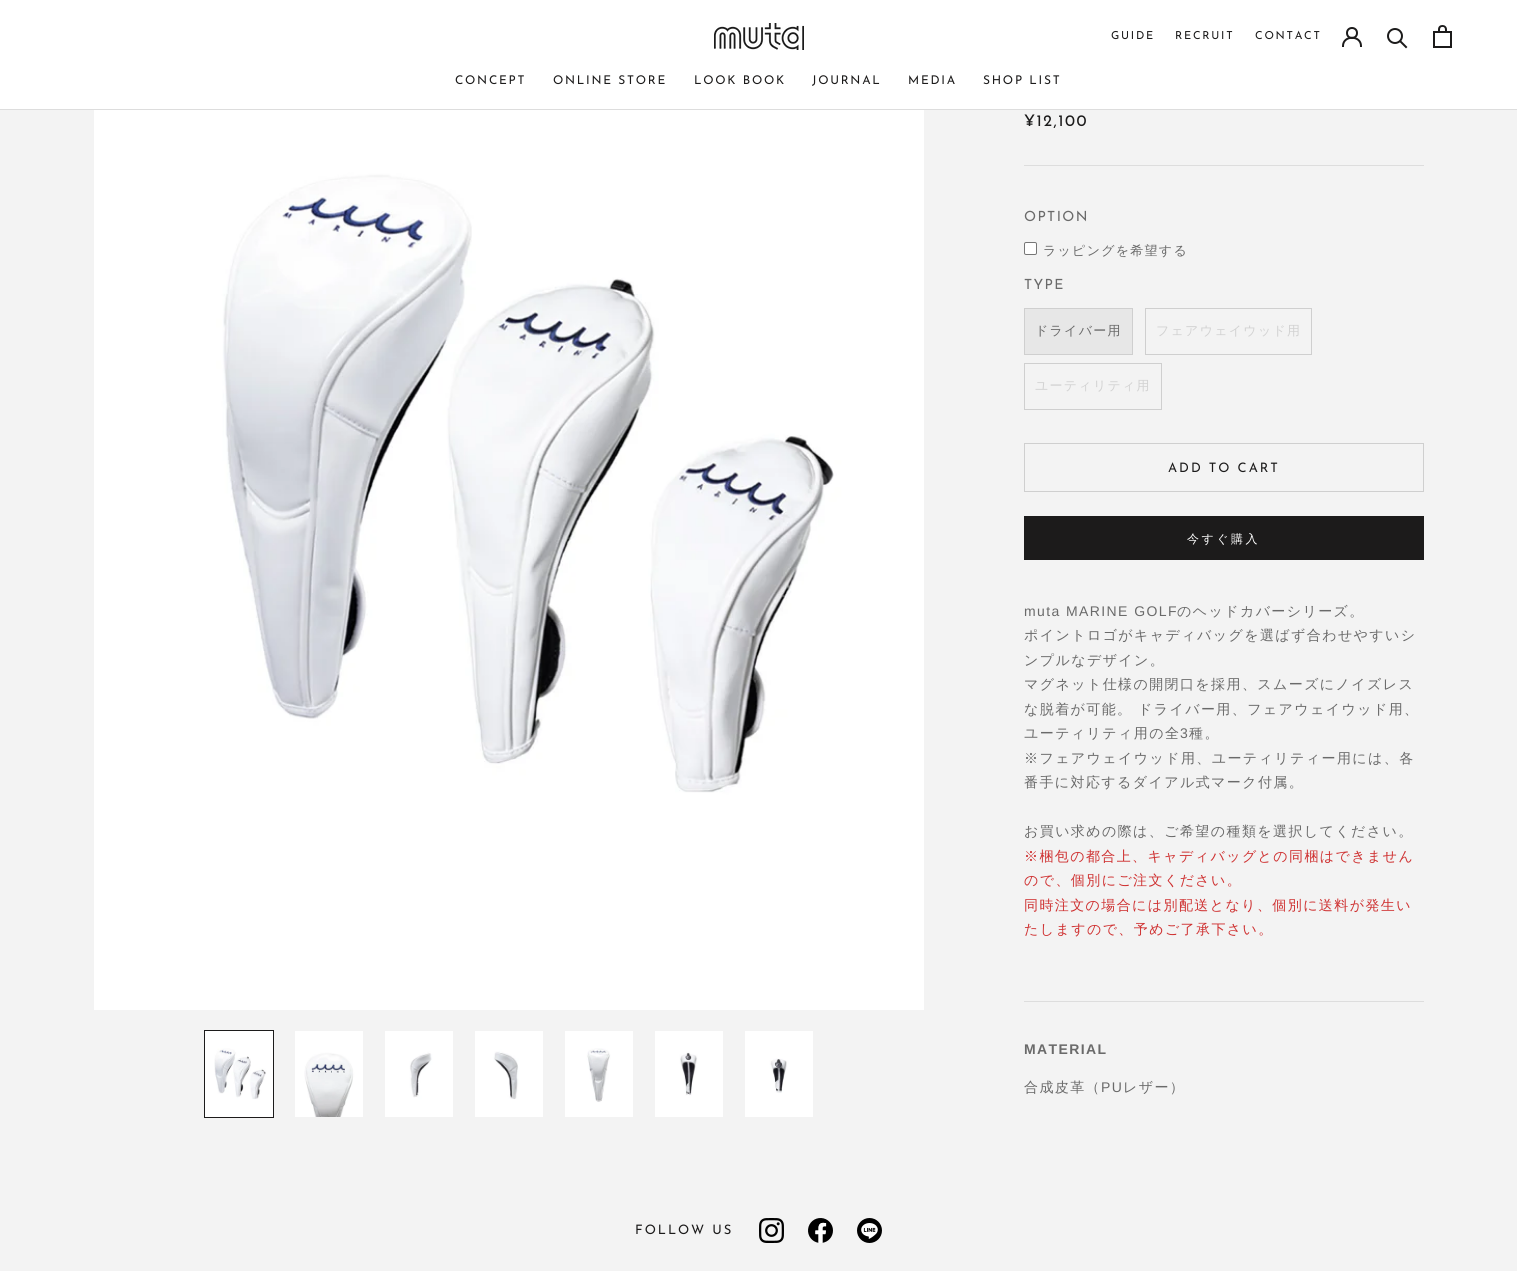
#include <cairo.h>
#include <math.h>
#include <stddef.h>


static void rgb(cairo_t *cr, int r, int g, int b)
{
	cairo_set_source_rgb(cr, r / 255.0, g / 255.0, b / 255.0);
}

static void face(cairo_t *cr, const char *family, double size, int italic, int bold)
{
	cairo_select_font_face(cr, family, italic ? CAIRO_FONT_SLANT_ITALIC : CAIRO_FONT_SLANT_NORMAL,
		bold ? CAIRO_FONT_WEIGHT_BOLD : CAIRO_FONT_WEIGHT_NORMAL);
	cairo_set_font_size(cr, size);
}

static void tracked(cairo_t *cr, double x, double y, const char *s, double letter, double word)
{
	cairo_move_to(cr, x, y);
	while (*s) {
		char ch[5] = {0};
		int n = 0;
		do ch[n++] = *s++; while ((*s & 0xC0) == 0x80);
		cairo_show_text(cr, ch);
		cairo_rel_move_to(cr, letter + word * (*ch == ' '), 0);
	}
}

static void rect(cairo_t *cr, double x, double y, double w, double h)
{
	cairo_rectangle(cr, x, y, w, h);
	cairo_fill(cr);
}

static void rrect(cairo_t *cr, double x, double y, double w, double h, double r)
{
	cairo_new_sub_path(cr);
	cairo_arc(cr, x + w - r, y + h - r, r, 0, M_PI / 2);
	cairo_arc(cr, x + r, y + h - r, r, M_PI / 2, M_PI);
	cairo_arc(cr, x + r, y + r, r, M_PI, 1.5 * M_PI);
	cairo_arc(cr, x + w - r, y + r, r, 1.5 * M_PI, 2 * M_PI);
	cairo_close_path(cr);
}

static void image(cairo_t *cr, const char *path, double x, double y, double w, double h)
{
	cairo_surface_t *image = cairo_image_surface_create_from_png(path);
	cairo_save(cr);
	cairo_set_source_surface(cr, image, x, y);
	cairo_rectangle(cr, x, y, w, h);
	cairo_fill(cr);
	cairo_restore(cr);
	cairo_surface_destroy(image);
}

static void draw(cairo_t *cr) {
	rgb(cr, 243, 243, 243);
	cairo_paint(cr);
	rgb(cr, 255, 255, 255);
	rect(cr, 0, 0, 1517, 109);
	rgb(cr, 221, 221, 221);
	rect(cr, 0, 109, 1517, 1);
	image(cr, "image0.png", 714, 23, 90, 27);
	face(cr, "Josefin Sans", 11, 0, 0);
	rgb(cr, 28, 27, 27);
	tracked(cr, 1111, 39, "GUIDE", 1.75, 0);
	tracked(cr, 1175, 39, "RECRUIT", 1.75, 0);
	tracked(cr, 1255, 39, "CONTACT", 1.75, 0);
	cairo_new_path(cr);
	cairo_move_to(cr, 1343, 46);
	cairo_curve_to(cr, 1343, 35, 1361, 35, 1361, 46);
	cairo_set_line_cap(cr, CAIRO_LINE_CAP_SQUARE);
	cairo_stroke(cr);
	cairo_arc(cr, 1352, 33, 5, 0, 2 * M_PI);
	cairo_set_line_cap(cr, CAIRO_LINE_CAP_BUTT);
	cairo_stroke(cr);
	cairo_new_path(cr);
	cairo_move_to(cr, 1406, 47);
	cairo_line_to(cr, 1400.5, 41.5);
	cairo_set_line_cap(cr, CAIRO_LINE_CAP_SQUARE);
	cairo_stroke(cr);
	cairo_arc(cr, 1395, 36, 7, 0, 2 * M_PI);
	cairo_set_line_cap(cr, CAIRO_LINE_CAP_BUTT);
	cairo_stroke(cr);
	image(cr, "image1.png", 1433, 25, 19, 23);
	face(cr, "Josefin Sans", 12, 0, 0);
	tracked(cr, 455, 84, "CONCEPT", 1.75, 0);
	tracked(cr, 553, 84, "ONLINE STORE", 1.75, 0);
	tracked(cr, 694, 84, "LOOK BOOK", 1.75, 0);
	tracked(cr, 812, 84, "JOURNAL", 1.75, 0);
	tracked(cr, 908, 84, "MEDIA", 1.75, 0);
	tracked(cr, 983, 84, "SHOP LIST", 1.75, 0);
	image(cr, "image2.png", 94, 110, 830, 900);
	cairo_rectangle(cr, 204.5, 1030.5, 69, 87);
	cairo_set_line_width(cr, 1);
	cairo_stroke(cr);
	image(cr, "image3.png", 205, 1031, 68, 86);
	image(cr, "image4.png", 295, 1031, 68, 86);
	image(cr, "image5.png", 385, 1031, 68, 86);
	image(cr, "image6.png", 475, 1031, 68, 86);
	image(cr, "image7.png", 565, 1031, 68, 86);
	image(cr, "image8.png", 655, 1031, 68, 86);
	image(cr, "image9.png", 745, 1031, 68, 86);
	face(cr, "Josefin Sans", 16, 0, 0);
	tracked(cr, 1024, 126, "¥12,100", 1.5, 0);
	rgb(cr, 221, 221, 221);
	rect(cr, 1024, 165, 400, 1);
	face(cr, "Josefin Sans", 14, 0, 0);
	rgb(cr, 106, 106, 106);
	tracked(cr, 1024, 221, "OPTION", 1.4, 0);
	rgb(cr, 255, 255, 255);
	rrect(cr, 1024.5, 242.5, 12, 12, 1.5);
	cairo_fill_preserve(cr);
	rgb(cr, 118, 118, 118);
	cairo_stroke(cr);
	face(cr, "WenQuanYi Zen Hei Medium", 13, 0, 0);
	rgb(cr, 106, 106, 106);
	tracked(cr, 1043, 255, "ラッピングを希望する", 1.25, 0);
	face(cr, "Josefin Sans", 14, 0, 0);
	tracked(cr, 1024, 289, "TYPE", 1.4, 0);
	cairo_rectangle(cr, 1024.5, 308.5, 108, 46);
	rgb(cr, 207, 207, 207);
	cairo_stroke(cr);
	rgb(cr, 231, 231, 231);
	rect(cr, 1025, 309, 107, 45);
	face(cr, "WenQuanYi Zen Hei Medium", 13, 0, 0);
	rgb(cr, 106, 106, 106);
	tracked(cr, 1035, 335, "ドライバー用", 1.25, 0);
	cairo_rectangle(cr, 1145.5, 308.5, 166, 46);
	rgb(cr, 207, 207, 207);
	cairo_stroke(cr);
	rgb(cr, 210, 210, 210);
	tracked(cr, 1156, 335, "フェアウェイウッド用", 1.25, 0);
	cairo_rectangle(cr, 1024.5, 363.5, 137, 46);
	rgb(cr, 207, 207, 207);
	cairo_stroke(cr);
	rgb(cr, 210, 210, 210);
	tracked(cr, 1035, 390, "ユーティリティ用", 1.25, 0);
	cairo_rectangle(cr, 1024.5, 443.5, 399, 48);
	rgb(cr, 207, 207, 207);
	cairo_stroke(cr);
	face(cr, "Josefin Sans", 13, 0, 0);
	rgb(cr, 28, 27, 27);
	tracked(cr, 1168, 472, "ADD TO CART", 2, 0);
	cairo_rectangle(cr, 1024.5, 516.5, 399, 43);
	cairo_stroke(cr);
	rect(cr, 1025, 517, 398, 42);
	face(cr, "WenQuanYi Zen Hei Medium", 12, 0, 0);
	rgb(cr, 255, 255, 255);
	tracked(cr, 1187, 543, "今すぐ購入", 2.5, 0);
	face(cr, "Liberation Sans", 14, 0, 0);
	rgb(cr, 106, 106, 106);
	tracked(cr, 1024, 616, "muta MARINE GOLF", 1.4, 0);
	face(cr, "WenQuanYi Zen Hei Medium", 14, 0, 0);
	tracked(cr, 1177, 616, "のヘッドカバーシリーズ。", 1.4, 0);
	tracked(cr, 1024, 640, "ポイントロゴがキャディバッグを選ばず合わせやすいシ", 1.4, 0);
	tracked(cr, 1024, 665, "ンプルなデザイン。", 1.4, 0);
	tracked(cr, 1024, 689, "マグネット仕様の開閉口を採用、スムーズにノイズレス", 1.4, 0);
	tracked(cr, 1024, 714, "な脱着が可能。 ドライバー用、フェアウェイウッド用、", 1.4, 0);
	tracked(cr, 1024, 738, "ユーティリティ用の全", 1.4, 0);
	face(cr, "Liberation Sans", 14, 0, 0);
	tracked(cr, 1180, 738, "3", 1.4, 0);
	face(cr, "WenQuanYi Zen Hei Medium", 14, 0, 0);
	tracked(cr, 1189, 738, "種。", 1.4, 0);
	tracked(cr, 1024, 763, "※フェアウェイウッド用、ユーティリティー用には、各", 1.4, 0);
	tracked(cr, 1024, 787, "番手に対応するダイアル式マーク付属。", 1.4, 0);
	tracked(cr, 1024, 836, "お買い求めの際は、ご希望の種類を選択してください。", 1.4, 0);
	rgb(cr, 207, 50, 50);
	tracked(cr, 1024, 861, "※梱包の都合上、キャディバッグとの同梱はできません", 1.4, 0);
	tracked(cr, 1024, 885, "ので、個別にご注文ください。", 1.4, 0);
	tracked(cr, 1024, 910, "同時注文の場合には別配送となり、個別に送料が発生い", 1.4, 0);
	tracked(cr, 1024, 934, "たしますので、予めご了承下さい。", 1.4, 0);
	rgb(cr, 221, 221, 221);
	rect(cr, 1024, 1001, 400, 1);
	face(cr, "Liberation Sans", 14, 0, 1);
	rgb(cr, 106, 106, 106);
	tracked(cr, 1024, 1054, "MATERIAL", 1.4, 0);
	face(cr, "WenQuanYi Zen Hei Medium", 14, 0, 0);
	tracked(cr, 1024, 1092, "合成皮革（", 1.4, 0);
	face(cr, "Liberation Sans", 14, 0, 0);
	tracked(cr, 1101, 1092, "PU", 1.4, 0);
	face(cr, "WenQuanYi Zen Hei Medium", 14, 0, 0);
	tracked(cr, 1123, 1092, "レザー）", 1.4, 0);
	face(cr, "Josefin Sans", 13, 0, 0);
	rgb(cr, 28, 27, 27);
	tracked(cr, 635, 1234, "FOLLOW US", 2, 0);
	image(cr, "image10.png", 759, 1218, 25, 25);
	image(cr, "image11.png", 808, 1218, 25, 25);
	image(cr, "image12.png", 857, 1218, 25, 25);
}

int main(void) {
	cairo_surface_t *surface = cairo_image_surface_create(CAIRO_FORMAT_RGB24, 1517, 1271);
	cairo_t *cr = cairo_create(surface);
	cairo_font_options_t *options = cairo_font_options_create();
	cairo_font_options_set_hint_metrics(options, CAIRO_HINT_METRICS_OFF);
	cairo_font_options_set_hint_style(options, CAIRO_HINT_STYLE_NONE);
	cairo_set_font_options(cr, options);
	cairo_set_miter_limit(cr, 4);
	draw(cr);
	cairo_surface_write_to_png(surface, "render.png");
	cairo_font_options_destroy(options);
	cairo_destroy(cr);
	cairo_surface_destroy(surface);
	return 0;
}
